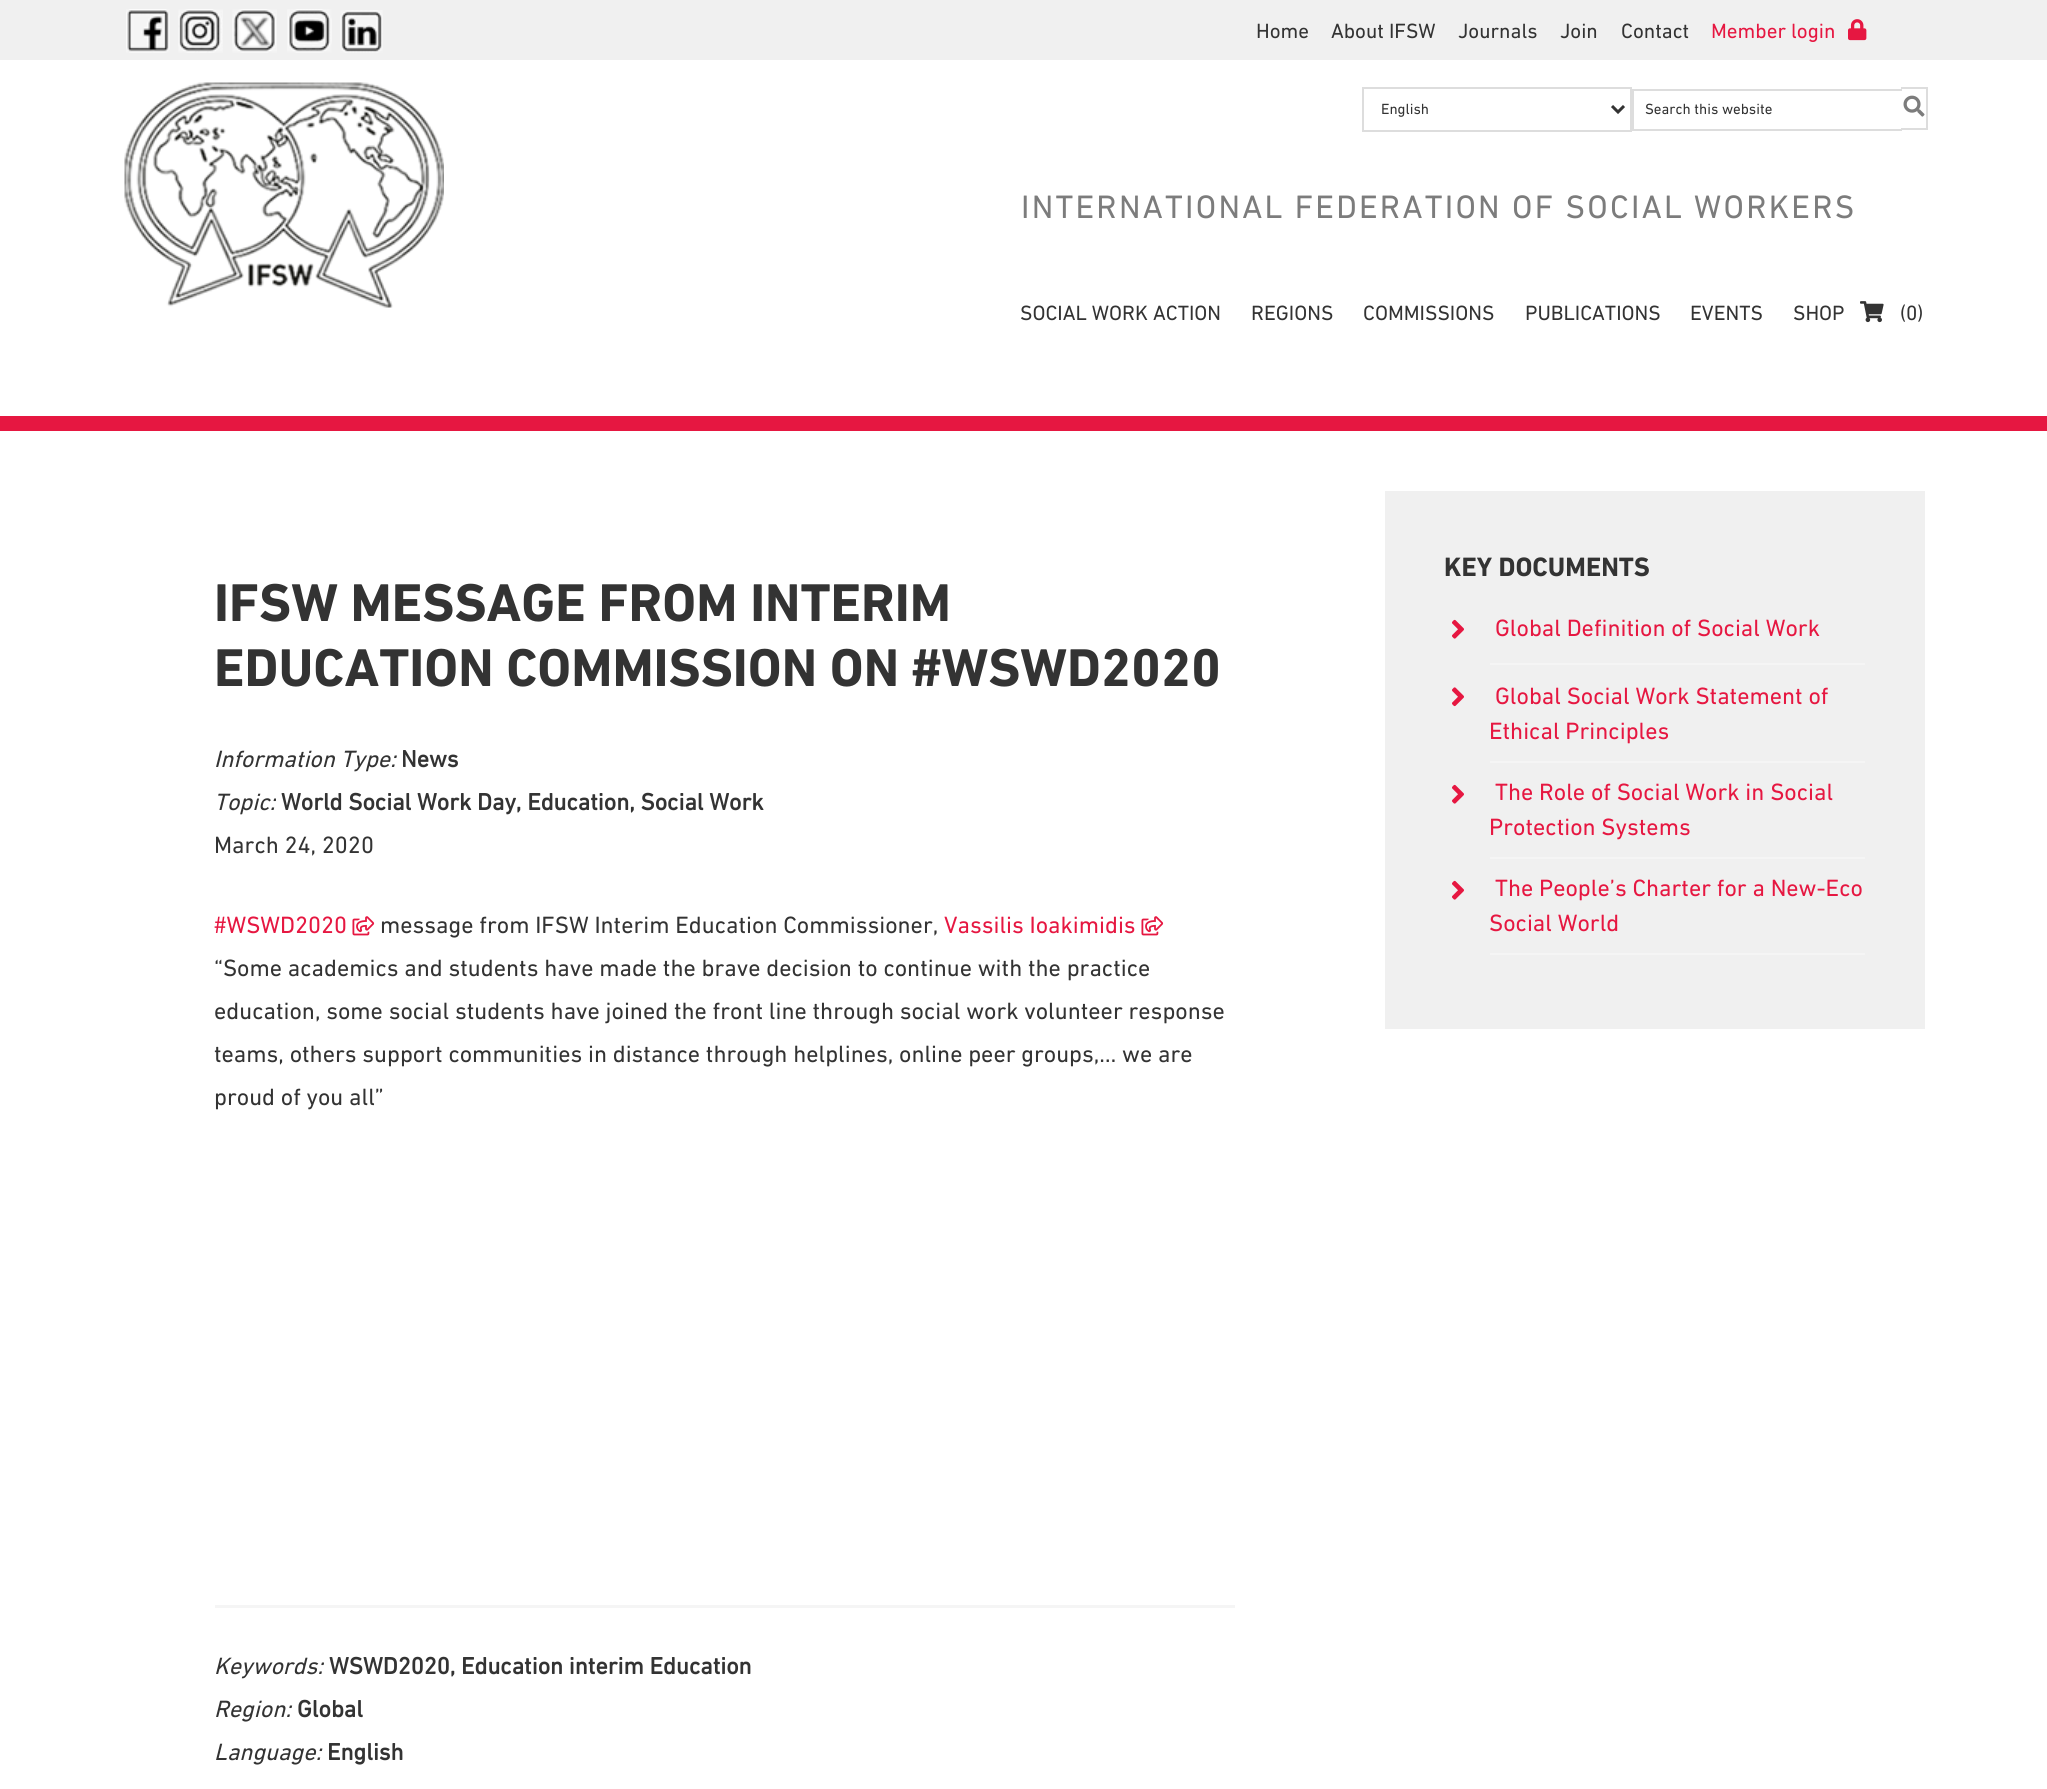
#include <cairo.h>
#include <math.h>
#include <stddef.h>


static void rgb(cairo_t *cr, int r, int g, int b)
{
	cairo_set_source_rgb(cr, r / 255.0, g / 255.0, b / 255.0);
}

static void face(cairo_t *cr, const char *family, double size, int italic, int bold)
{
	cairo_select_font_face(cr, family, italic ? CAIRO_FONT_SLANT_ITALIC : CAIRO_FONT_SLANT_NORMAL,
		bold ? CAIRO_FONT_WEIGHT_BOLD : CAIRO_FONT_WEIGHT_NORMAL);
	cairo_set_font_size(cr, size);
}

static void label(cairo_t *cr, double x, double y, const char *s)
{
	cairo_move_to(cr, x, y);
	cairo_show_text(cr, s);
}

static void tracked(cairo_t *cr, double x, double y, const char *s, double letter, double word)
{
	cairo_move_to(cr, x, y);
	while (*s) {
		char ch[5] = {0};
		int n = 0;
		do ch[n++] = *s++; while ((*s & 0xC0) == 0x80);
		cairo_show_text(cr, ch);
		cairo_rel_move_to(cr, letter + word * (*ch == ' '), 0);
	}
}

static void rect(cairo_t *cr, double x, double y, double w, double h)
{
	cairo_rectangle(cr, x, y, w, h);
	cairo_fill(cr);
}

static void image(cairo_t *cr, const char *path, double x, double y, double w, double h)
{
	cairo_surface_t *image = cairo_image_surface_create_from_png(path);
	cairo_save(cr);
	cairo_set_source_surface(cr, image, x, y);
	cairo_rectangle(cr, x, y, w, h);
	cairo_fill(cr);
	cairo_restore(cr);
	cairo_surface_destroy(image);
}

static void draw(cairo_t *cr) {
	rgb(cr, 255, 255, 255);
	cairo_paint(cr);
	rgb(cr, 240, 240, 240);
	rect(cr, 0, 0, 2047, 60);
	image(cr, "image0.png", 126, 9, 44, 44);
	image(cr, "image1.png", 178, 9, 45, 44);
	image(cr, "image2.png", 232, 9, 45, 44);
	image(cr, "image3.png", 287, 9, 45, 44);
	image(cr, "image4.png", 340, 10, 43, 43);
	face(cr, "DIN Next", 21, 0, 0);
	rgb(cr, 51, 51, 51);
	label(cr, 1256, 38, "Home");
	label(cr, 1331, 38, "About IFSW");
	label(cr, 1458, 38, "Journals");
	label(cr, 1560, 38, "Join");
	label(cr, 1621, 38, "Contact");
	rgb(cr, 230, 23, 65);
	label(cr, 1711, 38, "Member login");
	image(cr, "image5.png", 1848, 19, 19, 22);
	image(cr, "image6.png", 124, 82, 320, 226);
	cairo_rectangle(cr, 1363, 88, 268, 43);
	rgb(cr, 221, 221, 221);
	cairo_stroke(cr);
	cairo_new_path(cr);
	cairo_move_to(cr, 1612, 106);
	cairo_line_to(cr, 1618, 112);
	cairo_line_to(cr, 1624, 106);
	rgb(cr, 51, 51, 51);
	cairo_set_line_width(cr, 3);
	cairo_stroke(cr);
	face(cr, "DIN Next", 15, 0, 0);
	label(cr, 1381, 114, "English");
	rgb(cr, 221, 221, 221);
	rect(cr, 1632, 89, 270, 2);
	rect(cr, 1632, 129, 270, 2);
	rect(cr, 1632, 89, 2, 42);
	rgb(cr, 51, 51, 51);
	label(cr, 1645, 114, "Search this website");
	rgb(cr, 221, 221, 221);
	rect(cr, 1901, 87, 27, 2);
	rect(cr, 1926, 87, 2, 42);
	rect(cr, 1901, 128, 27, 2);
	image(cr, "image7.png", 1903, 95, 22, 22);
	face(cr, "DIN Next", 33, 0, 0);
	rgb(cr, 124, 124, 124);
	tracked(cr, 1021, 218, "INTERNATIONAL FEDERATION OF SOCIAL WORKERS", 2.25, 0);
	face(cr, "DIN Next", 21, 0, 0);
	rgb(cr, 51, 51, 51);
	label(cr, 1020, 320, "SOCIAL WORK ACTION");
	label(cr, 1251, 320, "REGIONS");
	label(cr, 1363, 320, "COMMISSIONS");
	label(cr, 1525, 320, "PUBLICATIONS");
	label(cr, 1690, 320, "EVENTS");
	label(cr, 1793, 320, "SHOP");
	image(cr, "image8.png", 1860, 301, 24, 22);
	label(cr, 1900, 320, "(0)");
	rgb(cr, 230, 23, 65);
	rect(cr, 0, 416, 2047, 15);
	face(cr, "DIN Next", 54, 0, 1);
	rgb(cr, 51, 51, 51);
	label(cr, 214, 621, "IFSW MESSAGE FROM INTERIM");
	label(cr, 214, 686, "EDUCATION COMMISSION ON #WSWD2020");
	face(cr, "DIN Next", 24, 1, 0);
	label(cr, 214, 767, "Information Type:");
	face(cr, "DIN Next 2", 24, 0, 1);
	label(cr, 401, 767, "News");
	face(cr, "DIN Next", 24, 1, 0);
	label(cr, 214, 810, "Topic:");
	face(cr, "DIN Next 2", 24, 0, 1);
	label(cr, 281, 810, "World Social Work Day, Education, Social Work");
	face(cr, "DIN Next", 24, 0, 0);
	label(cr, 214, 853, "March 24, 2020");
	rgb(cr, 230, 23, 65);
	label(cr, 214, 933, "#WSWD2020");
	image(cr, "image9.png", 352, 916, 23, 20);
	rgb(cr, 51, 51, 51);
	label(cr, 380, 933, "message from IFSW Interim Education Commissioner,");
	rgb(cr, 230, 23, 65);
	label(cr, 944, 933, "Vassilis Ioakimidis");
	image(cr, "image9.png", 1141, 916, 23, 20);
	rgb(cr, 51, 51, 51);
	label(cr, 214, 976, "“Some academics and students have made the brave decision to continue with the practice");
	label(cr, 214, 1019, "education, some social students have joined the front line through social work volunteer response");
	label(cr, 214, 1062, "teams, others support communities in distance through helplines, online peer groups,… we are");
	label(cr, 214, 1105, "proud of you all”");
	rgb(cr, 245, 245, 245);
	rect(cr, 215, 1605, 1020, 3);
	face(cr, "DIN Next", 24, 1, 0);
	rgb(cr, 51, 51, 51);
	label(cr, 214, 1674, "Keywords:");
	face(cr, "DIN Next 2", 24, 0, 1);
	label(cr, 329, 1674, "WSWD2020, Education interim Education");
	face(cr, "DIN Next", 24, 1, 0);
	label(cr, 214, 1717, "Region:");
	face(cr, "DIN Next 2", 24, 0, 1);
	label(cr, 297, 1717, "Global");
	face(cr, "DIN Next", 24, 1, 0);
	label(cr, 214, 1760, "Language:");
	face(cr, "DIN Next 2", 24, 0, 1);
	label(cr, 327, 1760, "English");
	rgb(cr, 240, 240, 240);
	rect(cr, 1385, 491, 540, 538);
	face(cr, "DIN Next", 27, 0, 1);
	rgb(cr, 51, 51, 51);
	label(cr, 1444, 576, "KEY DOCUMENTS");
	rgb(cr, 245, 245, 245);
	rect(cr, 1490, 663, 375, 2);
	image(cr, "image10.png", 1452, 619, 12, 20);
	face(cr, "DIN Next", 24, 0, 0);
	rgb(cr, 230, 23, 65);
	label(cr, 1495, 636, "Global Definition of Social Work");
	rgb(cr, 245, 245, 245);
	rect(cr, 1490, 761, 375, 2);
	image(cr, "image11.png", 1452, 687, 12, 20);
	rgb(cr, 230, 23, 65);
	label(cr, 1495, 704, "Global Social Work Statement of");
	label(cr, 1489, 739, "Ethical Principles");
	rgb(cr, 245, 245, 245);
	rect(cr, 1490, 857, 375, 2);
	image(cr, "image10.png", 1452, 784, 12, 20);
	rgb(cr, 230, 23, 65);
	label(cr, 1495, 800, "The Role of Social Work in Social");
	label(cr, 1489, 835, "Protection Systems");
	rgb(cr, 245, 245, 245);
	rect(cr, 1490, 953, 375, 2);
	image(cr, "image10.png", 1452, 880, 12, 20);
	rgb(cr, 230, 23, 65);
	label(cr, 1495, 896, "The People’s Charter for a New-Eco");
	label(cr, 1489, 931, "Social World");
}

int main(void) {
	cairo_surface_t *surface = cairo_image_surface_create(CAIRO_FORMAT_RGB24, 2047, 1789);
	cairo_t *cr = cairo_create(surface);
	cairo_font_options_t *options = cairo_font_options_create();
	cairo_font_options_set_hint_metrics(options, CAIRO_HINT_METRICS_OFF);
	cairo_font_options_set_hint_style(options, CAIRO_HINT_STYLE_NONE);
	cairo_set_font_options(cr, options);
	cairo_set_miter_limit(cr, 4);
	draw(cr);
	cairo_surface_write_to_png(surface, "render.png");
	cairo_font_options_destroy(options);
	cairo_destroy(cr);
	cairo_surface_destroy(surface);
	return 0;
}
